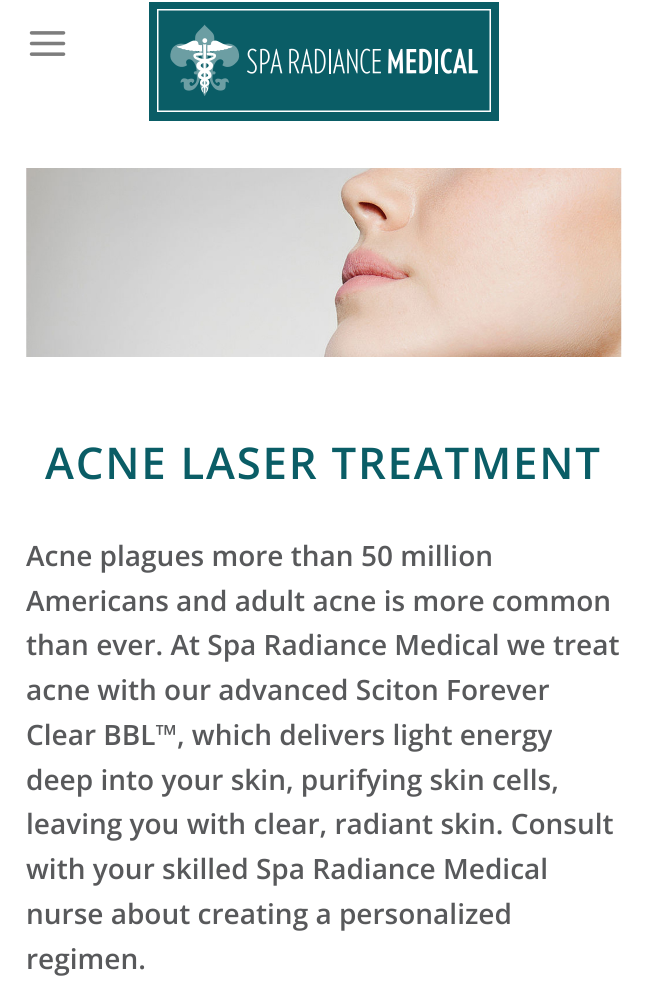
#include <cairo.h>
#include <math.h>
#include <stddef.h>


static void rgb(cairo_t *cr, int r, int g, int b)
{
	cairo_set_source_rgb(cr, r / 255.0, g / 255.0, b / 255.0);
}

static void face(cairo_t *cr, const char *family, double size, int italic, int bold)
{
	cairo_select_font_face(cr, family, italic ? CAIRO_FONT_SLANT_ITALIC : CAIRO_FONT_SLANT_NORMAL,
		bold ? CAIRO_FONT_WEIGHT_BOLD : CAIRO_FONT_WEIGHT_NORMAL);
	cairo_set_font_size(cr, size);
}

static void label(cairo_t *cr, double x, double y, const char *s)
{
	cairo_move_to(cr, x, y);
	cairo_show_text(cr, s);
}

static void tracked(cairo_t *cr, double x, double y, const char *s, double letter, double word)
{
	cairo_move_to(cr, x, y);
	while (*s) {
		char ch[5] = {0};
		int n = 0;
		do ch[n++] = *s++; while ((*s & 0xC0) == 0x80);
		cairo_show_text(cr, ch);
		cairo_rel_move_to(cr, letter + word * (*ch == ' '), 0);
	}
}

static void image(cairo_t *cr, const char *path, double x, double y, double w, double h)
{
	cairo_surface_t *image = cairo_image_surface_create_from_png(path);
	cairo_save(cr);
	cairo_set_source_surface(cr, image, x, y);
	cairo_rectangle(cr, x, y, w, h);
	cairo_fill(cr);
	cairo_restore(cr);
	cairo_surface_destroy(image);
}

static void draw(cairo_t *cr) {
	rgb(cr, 255, 255, 255);
	cairo_paint(cr);
	image(cr, "image0.png", 29, 31, 37, 25);
	image(cr, "image1.png", 149, 2, 350, 119);
	image(cr, "image2.png", 26, 168, 596, 189);
	face(cr, "Open Sans SemiBold", 43.75, 0, 0);
	rgb(cr, 10, 93, 102);
	tracked(cr, 45, 479, "ACNE LASER TREATMENT", 1.75, 0);
	face(cr, "Open Sans SemiBold", 28, 0, 0);
	rgb(cr, 88, 89, 91);
	label(cr, 26, 566, "Acne plagues more than 50 million");
	label(cr, 26, 611, "Americans and adult acne is more common");
	label(cr, 26, 655, "than ever. At Spa Radiance Medical we treat");
	label(cr, 26, 700, "acne with our advanced Sciton Forever");
	label(cr, 26, 745, "Clear BBL™, which delivers light energy");
	label(cr, 26, 790, "deep into your skin, purifying skin cells,");
	label(cr, 26, 834, "leaving you with clear, radiant skin. Consult");
	label(cr, 26, 879, "with your skilled Spa Radiance Medical");
	label(cr, 26, 924, "nurse about creating a personalized");
	label(cr, 26, 969, "regimen.");
}

int main(void) {
	cairo_surface_t *surface = cairo_image_surface_create(CAIRO_FORMAT_RGB24, 646, 1000);
	cairo_t *cr = cairo_create(surface);
	cairo_font_options_t *options = cairo_font_options_create();
	cairo_font_options_set_hint_metrics(options, CAIRO_HINT_METRICS_OFF);
	cairo_font_options_set_hint_style(options, CAIRO_HINT_STYLE_NONE);
	cairo_set_font_options(cr, options);
	cairo_set_miter_limit(cr, 4);
	draw(cr);
	cairo_surface_write_to_png(surface, "render.png");
	cairo_font_options_destroy(options);
	cairo_destroy(cr);
	cairo_surface_destroy(surface);
	return 0;
}
